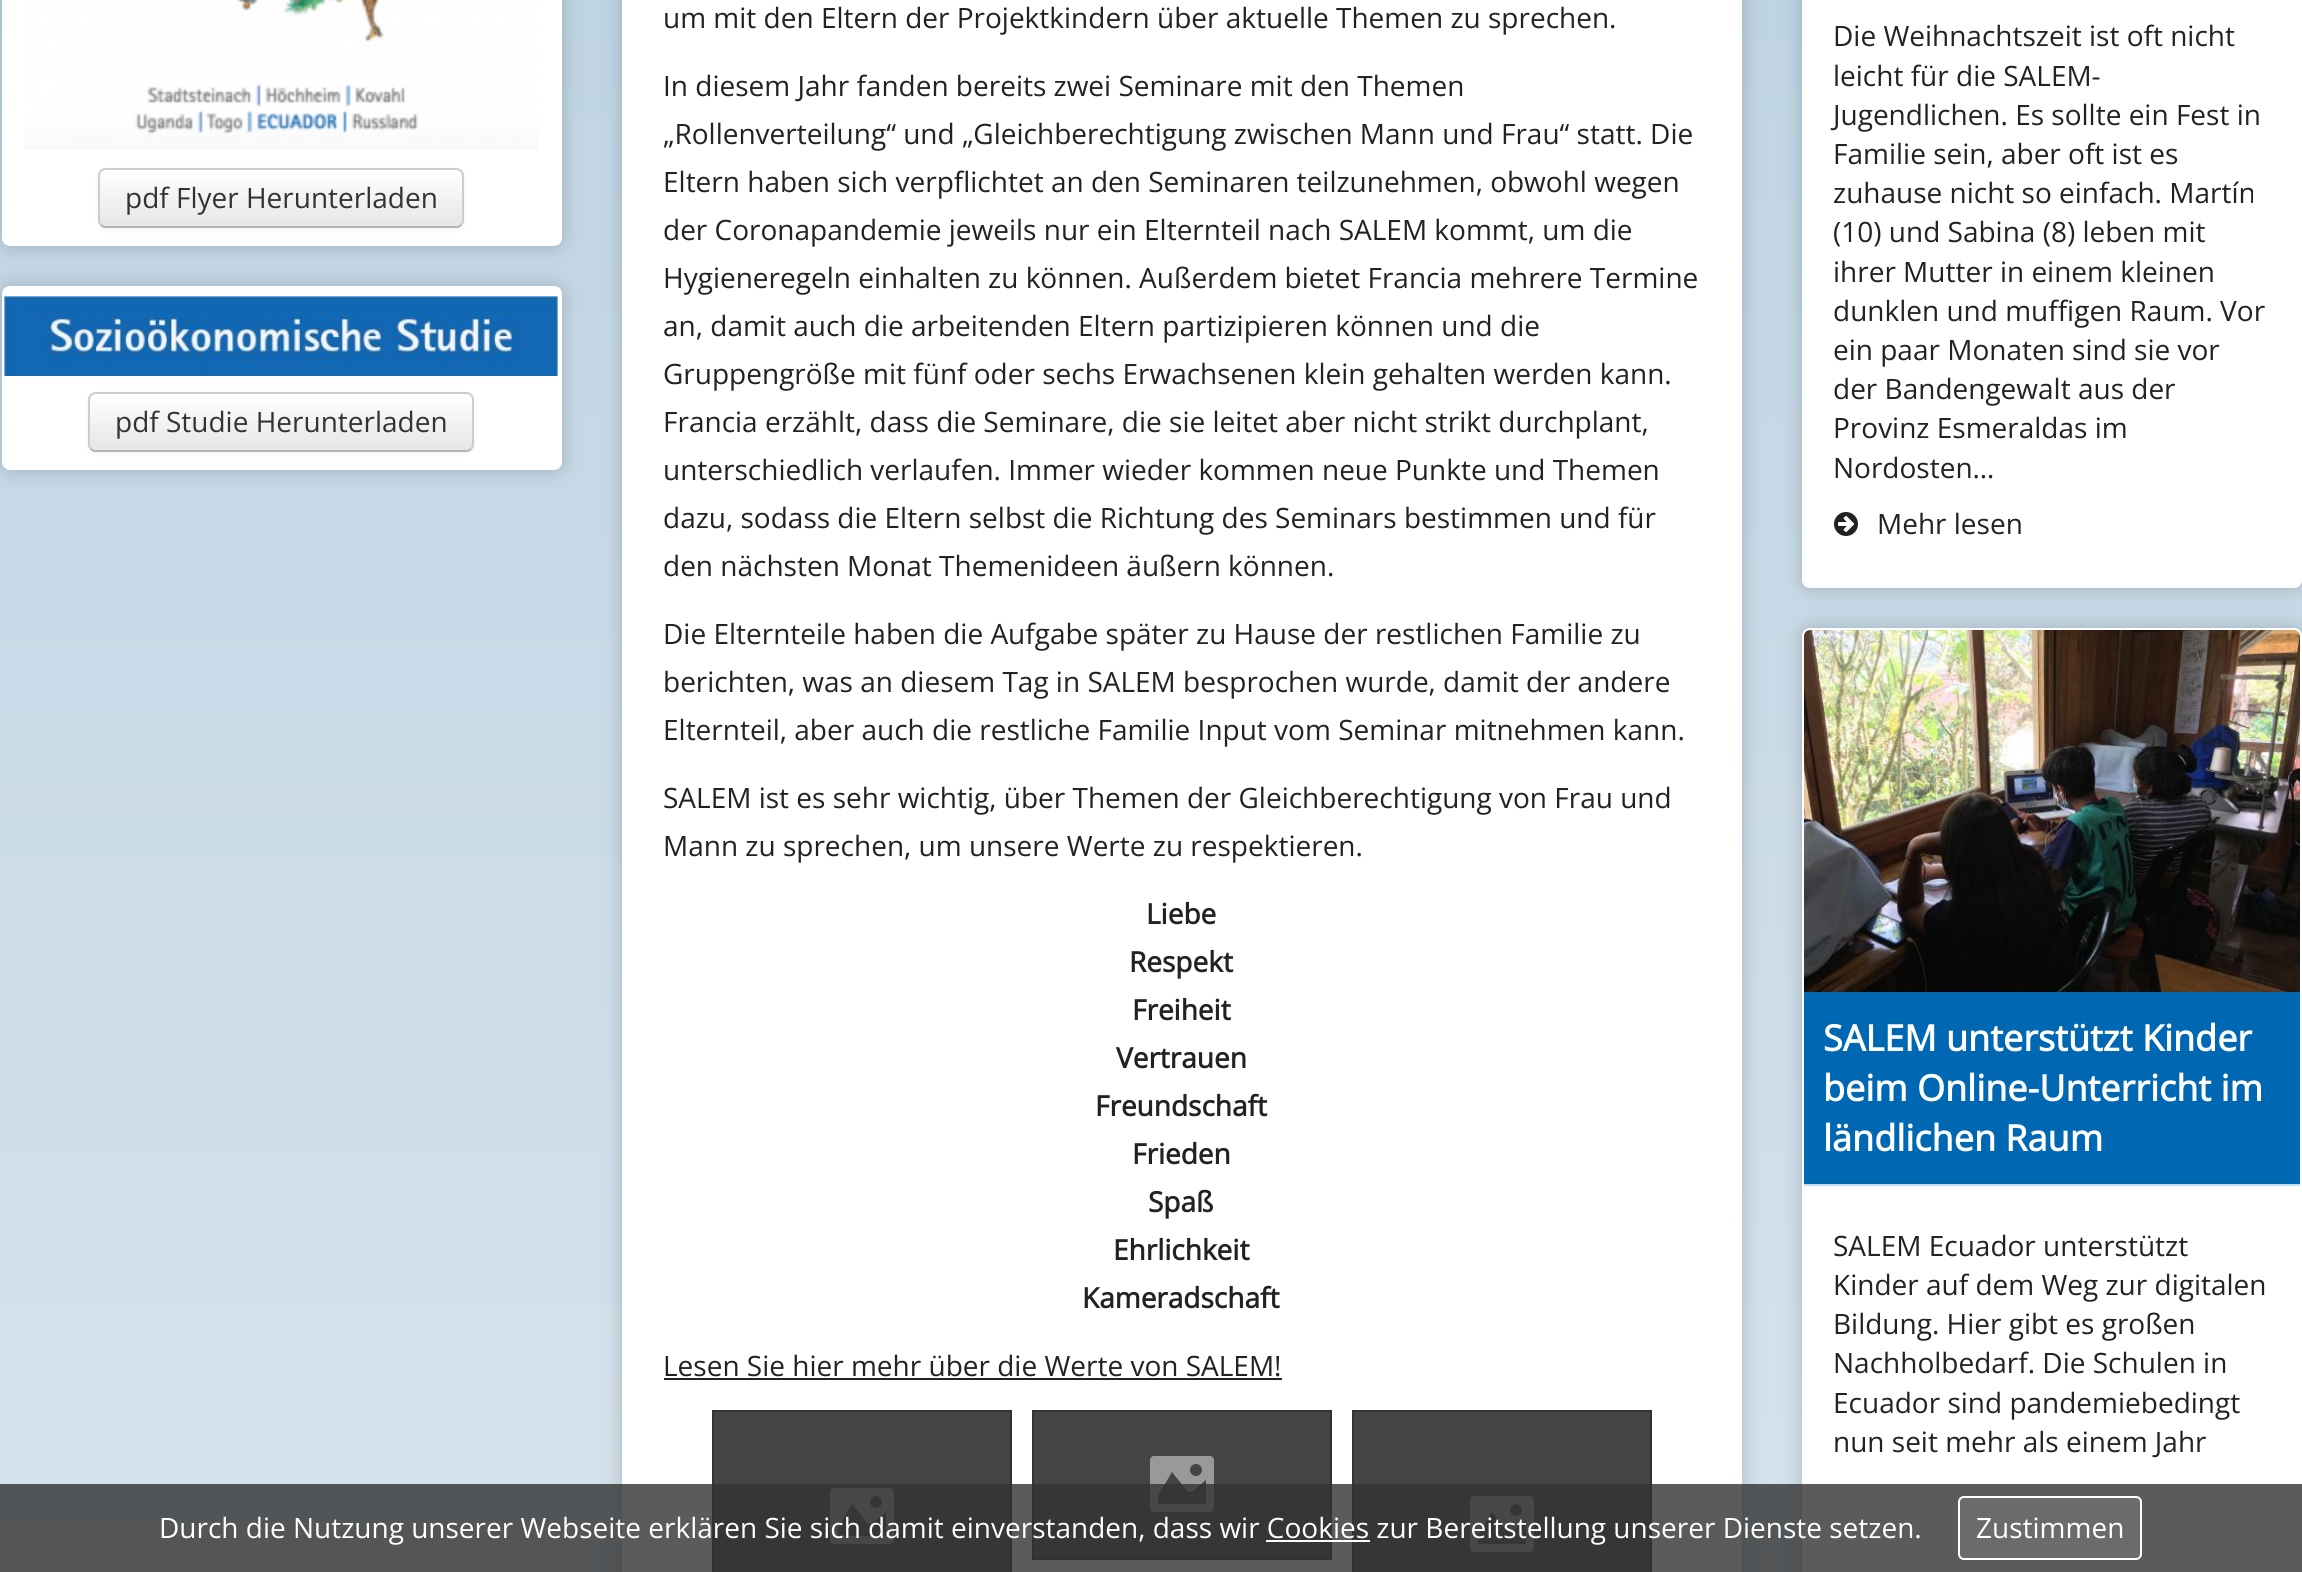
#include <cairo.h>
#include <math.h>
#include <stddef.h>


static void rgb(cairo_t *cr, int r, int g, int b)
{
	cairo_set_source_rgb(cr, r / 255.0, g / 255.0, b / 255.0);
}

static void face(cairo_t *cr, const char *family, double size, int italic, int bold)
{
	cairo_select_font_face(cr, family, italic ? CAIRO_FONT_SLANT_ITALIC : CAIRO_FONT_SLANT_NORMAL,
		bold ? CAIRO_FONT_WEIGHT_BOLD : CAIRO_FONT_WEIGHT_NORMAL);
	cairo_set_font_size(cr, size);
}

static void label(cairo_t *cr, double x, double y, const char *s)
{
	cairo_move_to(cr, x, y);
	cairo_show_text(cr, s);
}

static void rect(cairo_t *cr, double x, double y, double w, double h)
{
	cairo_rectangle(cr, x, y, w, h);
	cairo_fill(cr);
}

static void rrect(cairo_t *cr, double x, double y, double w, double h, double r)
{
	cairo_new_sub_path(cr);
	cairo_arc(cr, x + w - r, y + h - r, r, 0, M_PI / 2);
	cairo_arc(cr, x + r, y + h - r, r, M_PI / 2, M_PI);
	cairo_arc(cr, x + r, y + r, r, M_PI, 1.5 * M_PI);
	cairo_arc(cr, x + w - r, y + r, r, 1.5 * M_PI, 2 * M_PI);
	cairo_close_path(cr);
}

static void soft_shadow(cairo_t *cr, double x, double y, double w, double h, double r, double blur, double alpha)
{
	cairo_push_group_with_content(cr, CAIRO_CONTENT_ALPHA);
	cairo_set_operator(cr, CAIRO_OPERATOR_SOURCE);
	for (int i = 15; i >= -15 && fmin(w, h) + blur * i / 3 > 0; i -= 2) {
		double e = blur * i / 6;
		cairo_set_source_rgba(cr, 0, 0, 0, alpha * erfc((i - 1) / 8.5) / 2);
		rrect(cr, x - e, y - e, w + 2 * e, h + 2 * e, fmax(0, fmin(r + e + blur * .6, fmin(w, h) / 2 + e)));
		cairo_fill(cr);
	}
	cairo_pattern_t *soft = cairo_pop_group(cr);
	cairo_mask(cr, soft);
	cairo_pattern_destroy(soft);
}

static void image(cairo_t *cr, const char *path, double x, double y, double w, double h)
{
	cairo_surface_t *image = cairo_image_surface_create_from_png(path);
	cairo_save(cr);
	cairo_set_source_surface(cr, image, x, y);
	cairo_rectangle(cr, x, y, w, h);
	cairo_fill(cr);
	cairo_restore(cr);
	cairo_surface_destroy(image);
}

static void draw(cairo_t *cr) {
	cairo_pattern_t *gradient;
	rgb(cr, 255, 255, 255);
	cairo_paint(cr);
	gradient = cairo_pattern_create_linear(1151, -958, 1151, 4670);
	cairo_pattern_add_color_stop_rgba(gradient, 0, 0.702, 0.8, 0.871, 1);
	cairo_pattern_add_color_stop_rgba(gradient, 1, 1, 1, 1, 1);
	cairo_set_source(cr, gradient);
	cairo_pattern_destroy(gradient);
	rect(cr, 0, 0, 2302, 1572);
	rgb(cr, 0, 0, 0);
	soft_shadow(cr, 2, -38, 560, 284, 8, 10, 0.2);
	rgb(cr, 255, 255, 255);
	rrect(cr, 3, -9, 558, 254, 7);
	cairo_fill_preserve(cr);
	cairo_stroke(cr);
	image(cr, "image0.png", 24, 0, 514, 150);
	rgb(cr, 0, 0, 0);
	soft_shadow(cr, 98, 170, 366, 60, 8, 2, 0.05);
	cairo_save(cr);
	rrect(cr, 98, 168, 366, 60, 8);
	cairo_clip(cr);
	gradient = cairo_pattern_create_linear(281, 170, 281, 226);
	cairo_pattern_add_color_stop_rgba(gradient, 0, 1, 1, 1, 1);
	cairo_pattern_add_color_stop_rgba(gradient, 1, 0.902, 0.902, 0.902, 1);
	cairo_set_source(cr, gradient);
	cairo_pattern_destroy(gradient);
	rect(cr, 98, 170, 366, 56);
	cairo_restore(cr);
	cairo_new_path(cr);
	cairo_move_to(cr, 461, 225);
	cairo_curve_to(cr, 459.5, 226.5, 458, 227, 456, 227);
	cairo_line_to(cr, 106, 227);
	cairo_curve_to(cr, 104, 227, 102.5, 226.5, 101, 225);
	rgb(cr, 179, 179, 179);
	cairo_stroke(cr);
	cairo_new_path(cr);
	cairo_move_to(cr, 101, 225);
	cairo_curve_to(cr, 99.5, 223.5, 99, 222, 99, 220);
	cairo_line_to(cr, 99, 176);
	cairo_curve_to(cr, 99, 174, 99.5, 172.5, 101, 171);
	cairo_curve_to(cr, 102.5, 169.5, 104, 169, 106, 169);
	cairo_line_to(cr, 456, 169);
	cairo_curve_to(cr, 458, 169, 459.5, 169.5, 461, 171);
	cairo_curve_to(cr, 462.5, 172.5, 463, 174, 463, 176);
	cairo_line_to(cr, 463, 220);
	cairo_curve_to(cr, 463, 222, 462.5, 223.5, 461, 225);
	rgb(cr, 204, 204, 204);
	cairo_stroke(cr);
	face(cr, "Open Sans", 28, 0, 0);
	rgb(cr, 51, 51, 51);
	label(cr, 125, 208, "pdf Flyer Herunterladen");
	rgb(cr, 0, 0, 0);
	soft_shadow(cr, 2, 286, 560, 184, 8, 10, 0.2);
	rgb(cr, 255, 255, 255);
	rrect(cr, 3, 287, 558, 182, 7);
	cairo_fill_preserve(cr);
	cairo_stroke(cr);
	image(cr, "image1.png", 4, 296, 554, 80);
	rgb(cr, 0, 0, 0);
	soft_shadow(cr, 88, 394, 386, 60, 8, 2, 0.05);
	cairo_save(cr);
	rrect(cr, 88, 392, 386, 60, 8);
	cairo_clip(cr);
	gradient = cairo_pattern_create_linear(281, 394, 281, 450);
	cairo_pattern_add_color_stop_rgba(gradient, 0, 1, 1, 1, 1);
	cairo_pattern_add_color_stop_rgba(gradient, 1, 0.902, 0.902, 0.902, 1);
	cairo_set_source(cr, gradient);
	cairo_pattern_destroy(gradient);
	rect(cr, 88, 394, 386, 56);
	cairo_restore(cr);
	cairo_new_path(cr);
	cairo_move_to(cr, 471, 449);
	cairo_curve_to(cr, 469.5, 450.5, 468, 451, 466, 451);
	cairo_line_to(cr, 96, 451);
	cairo_curve_to(cr, 94, 451, 92.5, 450.5, 91, 449);
	rgb(cr, 179, 179, 179);
	cairo_stroke(cr);
	cairo_new_path(cr);
	cairo_move_to(cr, 91, 449);
	cairo_curve_to(cr, 89.5, 447.5, 89, 446, 89, 444);
	cairo_line_to(cr, 89, 400);
	cairo_curve_to(cr, 89, 398, 89.5, 396.5, 91, 395);
	cairo_curve_to(cr, 92.5, 393.5, 94, 393, 96, 393);
	cairo_line_to(cr, 466, 393);
	cairo_curve_to(cr, 468, 393, 469.5, 393.5, 471, 395);
	cairo_curve_to(cr, 472.5, 396.5, 473, 398, 473, 400);
	cairo_line_to(cr, 473, 444);
	cairo_curve_to(cr, 473, 446, 472.5, 447.5, 471, 449);
	rgb(cr, 204, 204, 204);
	cairo_stroke(cr);
	rgb(cr, 51, 51, 51);
	label(cr, 115, 432, "pdf Studie Herunterladen");
	rgb(cr, 0, 0, 0);
	soft_shadow(cr, 622, -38, 1120, 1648, 8, 10, 0.2);
	rgb(cr, 255, 255, 255);
	rect(cr, 622, 0, 1120, 1572);
	rgb(cr, 34, 34, 34);
	label(cr, 663, 28, "um mit den Eltern der Projektkindern über aktuelle Themen zu sprechen.");
	label(cr, 663, 96, "In diesem Jahr fanden bereits zwei Seminare mit den Themen");
	label(cr, 663, 144, "„Rollenverteilung“ und „Gleichberechtigung zwischen Mann und Frau“ statt. Die");
	label(cr, 663, 192, "Eltern haben sich verpflichtet an den Seminaren teilzunehmen, obwohl wegen");
	label(cr, 663, 240, "der Coronapandemie jeweils nur ein Elternteil nach SALEM kommt, um die");
	label(cr, 663, 288, "Hygieneregeln einhalten zu können. Außerdem bietet Francia mehrere Termine");
	label(cr, 663, 336, "an, damit auch die arbeitenden Eltern partizipieren können und die");
	label(cr, 663, 384, "Gruppengröße mit fünf oder sechs Erwachsenen klein gehalten werden kann.");
	label(cr, 663, 432, "Francia erzählt, dass die Seminare, die sie leitet aber nicht strikt durchplant,");
	label(cr, 663, 480, "unterschiedlich verlaufen. Immer wieder kommen neue Punkte und Themen");
	label(cr, 663, 528, "dazu, sodass die Eltern selbst die Richtung des Seminars bestimmen und für");
	label(cr, 663, 576, "den nächsten Monat Themenideen äußern können.");
	label(cr, 663, 644, "Die Elternteile haben die Aufgabe später zu Hause der restlichen Familie zu");
	label(cr, 663, 692, "berichten, was an diesem Tag in SALEM besprochen wurde, damit der andere");
	label(cr, 663, 740, "Elternteil, aber auch die restliche Familie Input vom Seminar mitnehmen kann.");
	label(cr, 663, 808, "SALEM ist es sehr wichtig, über Themen der Gleichberechtigung von Frau und");
	label(cr, 663, 856, "Mann zu sprechen, um unsere Werte zu respektieren.");
	face(cr, "Open Sans", 28, 0, 1);
	label(cr, 1146, 924, "Liebe");
	label(cr, 1129, 972, "Respekt");
	label(cr, 1132, 1020, "Freiheit");
	label(cr, 1116, 1068, "Vertrauen");
	label(cr, 1095, 1116, "Freundschaft");
	label(cr, 1132, 1164, "Frieden");
	label(cr, 1148, 1212, "Spaß");
	label(cr, 1113, 1260, "Ehrlichkeit");
	label(cr, 1082, 1308, "Kameradschaft");
	face(cr, "Open Sans", 28, 0, 0);
	label(cr, 663, 1376, "Lesen Sie hier mehr über die Werte von SALEM!");
	rect(cr, 664, 1378, 618, 2);
	rgb(cr, 68, 68, 68);
	cairo_rectangle(cr, 713, 1411, 298, 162);
	cairo_fill_preserve(cr);
	rgb(cr, 51, 51, 51);
	cairo_stroke(cr);
	image(cr, "image2.png", 830, 1488, 64, 56);
	rgb(cr, 68, 68, 68);
	cairo_rectangle(cr, 1033, 1411, 298, 148);
	cairo_fill_preserve(cr);
	rgb(cr, 51, 51, 51);
	cairo_stroke(cr);
	image(cr, "image3.png", 1150, 1456, 64, 56);
	rgb(cr, 68, 68, 68);
	cairo_rectangle(cr, 1353, 1411, 298, 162);
	cairo_fill_preserve(cr);
	rgb(cr, 51, 51, 51);
	cairo_stroke(cr);
	image(cr, "image4.png", 1470, 1496, 64, 56);
	rgb(cr, 0, 0, 0);
	soft_shadow(cr, 1802, -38, 500, 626, 8, 10, 0.2);
	rgb(cr, 255, 255, 255);
	rrect(cr, 1803, -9, 498, 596, 7);
	cairo_fill_preserve(cr);
	cairo_stroke(cr);
	rgb(cr, 34, 34, 34);
	label(cr, 1833, 46, "Die Weihnachtszeit ist oft nicht");
	label(cr, 1833, 86, "leicht für die SALEM-");
	label(cr, 1833, 125, "Jugendlichen. Es sollte ein Fest in");
	label(cr, 1833, 164, "Familie sein, aber oft ist es");
	label(cr, 1833, 203, "zuhause nicht so einfach. Martín");
	label(cr, 1833, 242, "(10) und Sabina (8) leben mit");
	label(cr, 1833, 282, "ihrer Mutter in einem kleinen");
	label(cr, 1833, 321, "dunklen und muffigen Raum. Vor");
	label(cr, 1833, 360, "ein paar Monaten sind sie vor");
	label(cr, 1833, 399, "der Bandengewalt aus der");
	label(cr, 1833, 438, "Provinz Esmeraldas im");
	label(cr, 1833, 478, "Nordosten…");
	image(cr, "image5.png", 1834, 512, 24, 24);
	label(cr, 1877, 534, "Mehr lesen");
	rgb(cr, 0, 0, 0);
	soft_shadow(cr, 1802, 628, 500, 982, 8, 10, 0.2);
	rgb(cr, 255, 255, 255);
	rrect(cr, 1803, 629, 498, 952, 7);
	cairo_fill_preserve(cr);
	cairo_stroke(cr);
	image(cr, "image6.png", 1804, 630, 496, 362);
	rgb(cr, 0, 104, 179);
	rect(cr, 1804, 992, 496, 192);
	rgb(cr, 194, 223, 244);
	rect(cr, 1804, 1184, 496, 2);
	face(cr, "Open Sans", 36, 0, 1);
	rgb(cr, 255, 255, 255);
	label(cr, 1823, 1051, "SALEM unterstützt Kinder");
	label(cr, 1823, 1101, "beim Online-Unterricht im");
	label(cr, 1823, 1151, "ländlichen Raum");
	face(cr, "Open Sans", 28, 0, 0);
	rgb(cr, 34, 34, 34);
	label(cr, 1833, 1256, "SALEM Ecuador unterstützt");
	label(cr, 1833, 1295, "Kinder auf dem Weg zur digitalen");
	label(cr, 1833, 1334, "Bildung. Hier gibt es großen");
	label(cr, 1833, 1373, "Nachholbedarf. Die Schulen in");
	label(cr, 1833, 1413, "Ecuador sind pandemiebedingt");
	label(cr, 1833, 1452, "nun seit mehr als einem Jahr");
	cairo_set_source_rgba(cr, 0.196, 0.196, 0.196, 0.8);
	rect(cr, 0, 1484, 2302, 88);
	rgb(cr, 255, 255, 255);
	label(cr, 159, 1538, "Durch die Nutzung unserer Webseite erklären Sie sich damit einverstanden, dass wir Cookies zur Bereitstellung unserer Dienste setzen.");
	cairo_set_source_rgba(cr, 1, 1, 1, 0.1);
	rrect(cr, 1959, 1497, 182, 62, 5);
	cairo_fill_preserve(cr);
	rgb(cr, 255, 255, 255);
	cairo_stroke(cr);
	label(cr, 1976, 1538, "Zustimmen");
	rect(cr, 1266, 1540, 104, 2);
}

int main(void) {
	cairo_surface_t *surface = cairo_image_surface_create(CAIRO_FORMAT_RGB24, 2302, 1572);
	cairo_t *cr = cairo_create(surface);
	cairo_font_options_t *options = cairo_font_options_create();
	cairo_font_options_set_hint_metrics(options, CAIRO_HINT_METRICS_OFF);
	cairo_font_options_set_hint_style(options, CAIRO_HINT_STYLE_NONE);
	cairo_set_font_options(cr, options);
	cairo_set_miter_limit(cr, 4);
	draw(cr);
	cairo_surface_write_to_png(surface, "render.png");
	cairo_font_options_destroy(options);
	cairo_destroy(cr);
	cairo_surface_destroy(surface);
	return 0;
}
